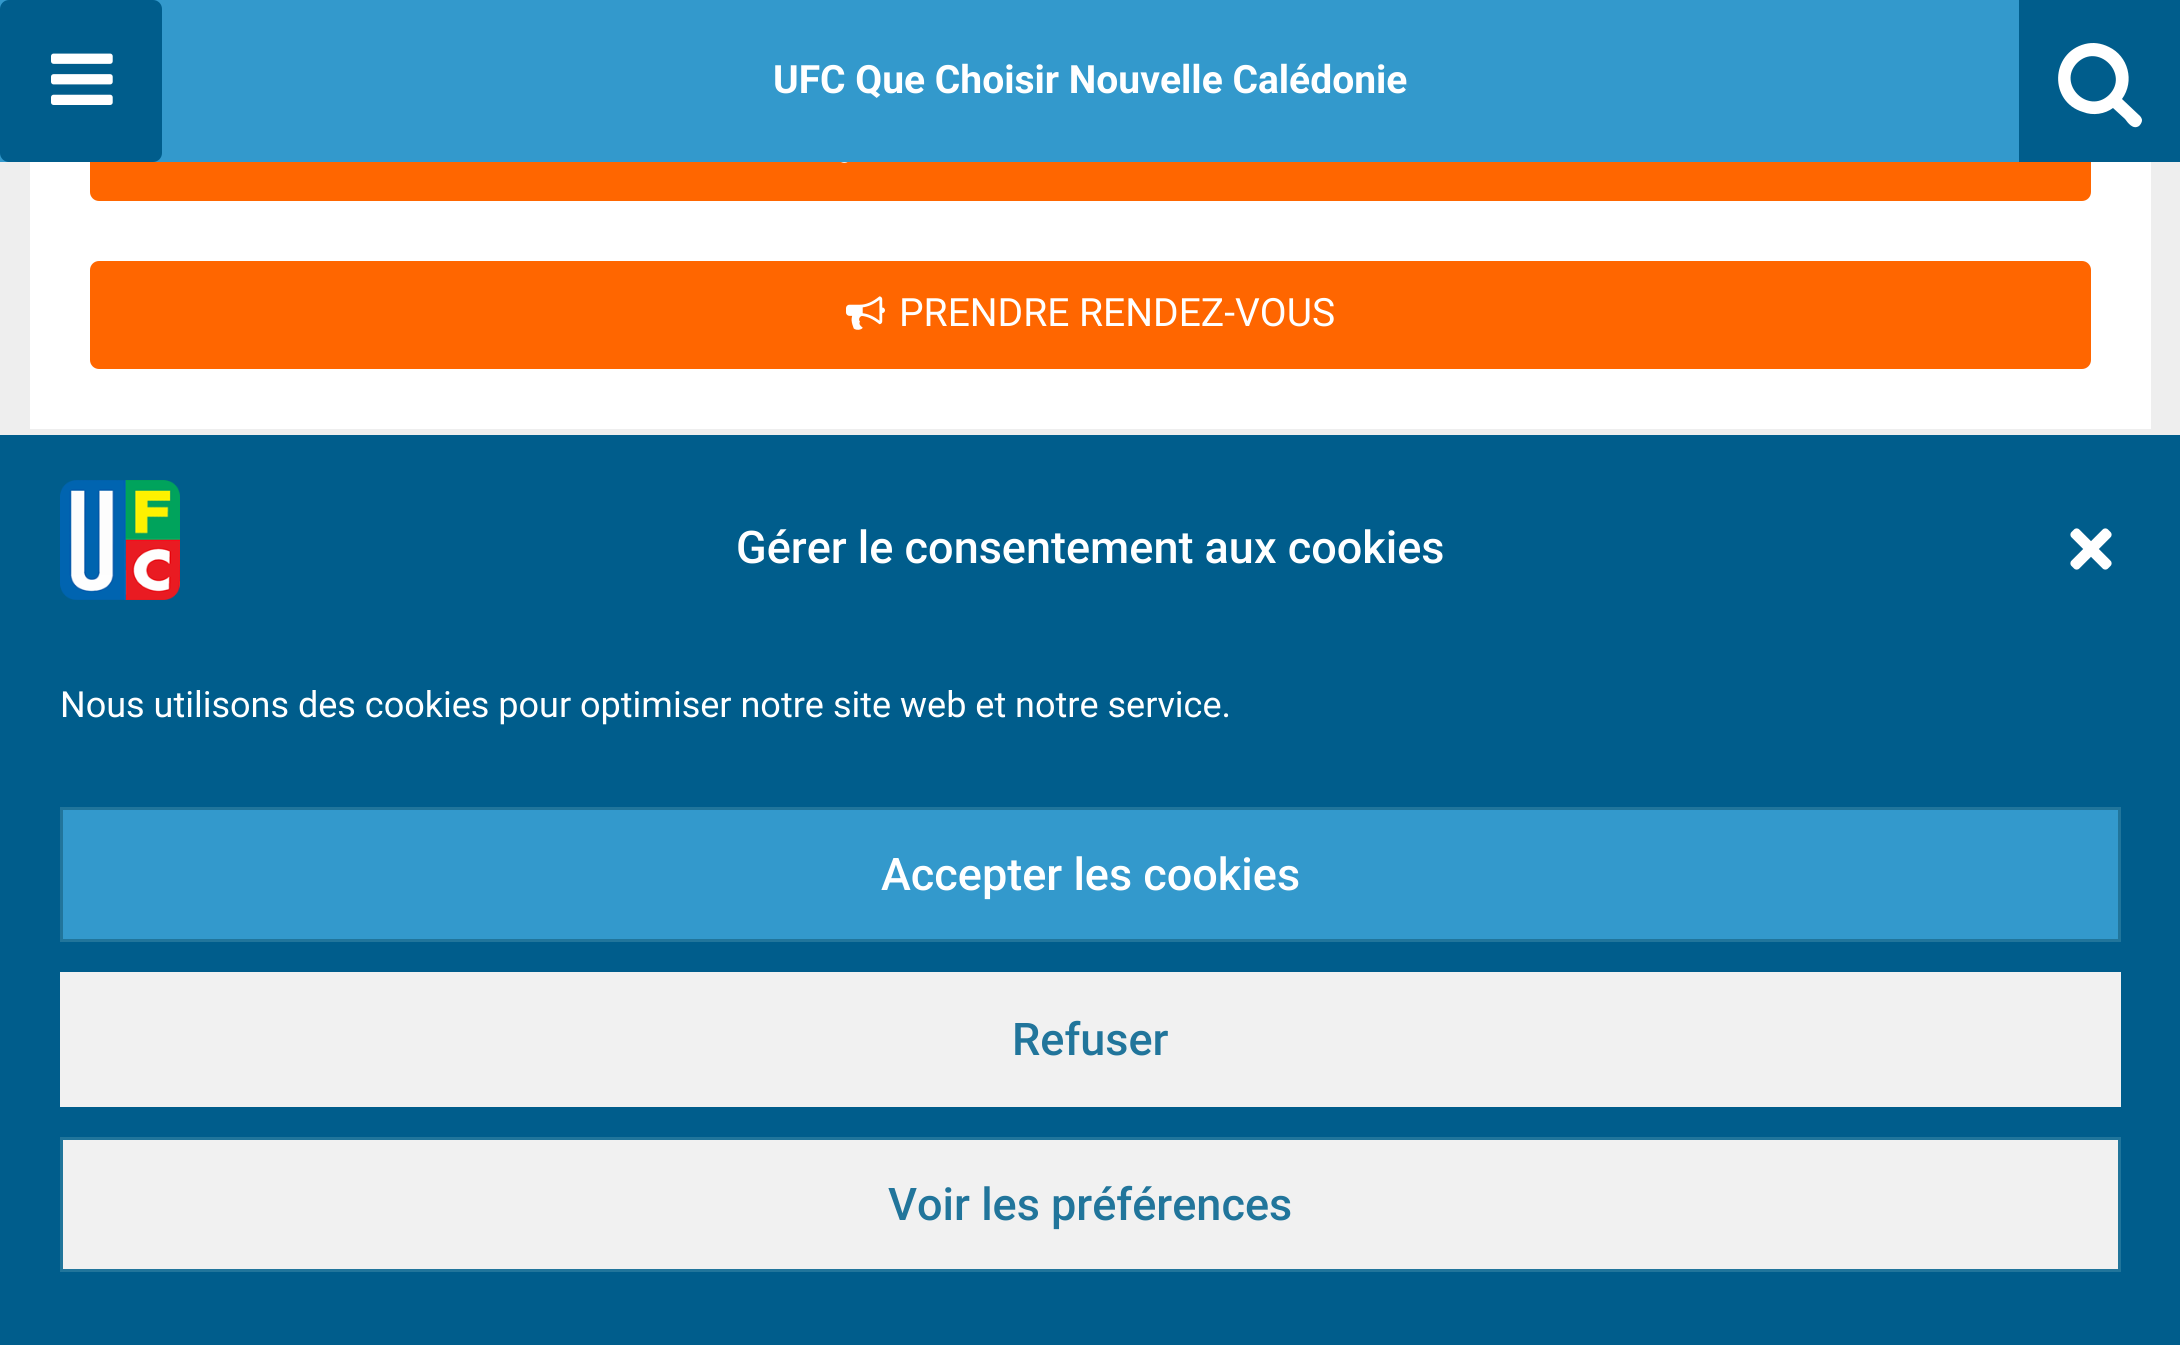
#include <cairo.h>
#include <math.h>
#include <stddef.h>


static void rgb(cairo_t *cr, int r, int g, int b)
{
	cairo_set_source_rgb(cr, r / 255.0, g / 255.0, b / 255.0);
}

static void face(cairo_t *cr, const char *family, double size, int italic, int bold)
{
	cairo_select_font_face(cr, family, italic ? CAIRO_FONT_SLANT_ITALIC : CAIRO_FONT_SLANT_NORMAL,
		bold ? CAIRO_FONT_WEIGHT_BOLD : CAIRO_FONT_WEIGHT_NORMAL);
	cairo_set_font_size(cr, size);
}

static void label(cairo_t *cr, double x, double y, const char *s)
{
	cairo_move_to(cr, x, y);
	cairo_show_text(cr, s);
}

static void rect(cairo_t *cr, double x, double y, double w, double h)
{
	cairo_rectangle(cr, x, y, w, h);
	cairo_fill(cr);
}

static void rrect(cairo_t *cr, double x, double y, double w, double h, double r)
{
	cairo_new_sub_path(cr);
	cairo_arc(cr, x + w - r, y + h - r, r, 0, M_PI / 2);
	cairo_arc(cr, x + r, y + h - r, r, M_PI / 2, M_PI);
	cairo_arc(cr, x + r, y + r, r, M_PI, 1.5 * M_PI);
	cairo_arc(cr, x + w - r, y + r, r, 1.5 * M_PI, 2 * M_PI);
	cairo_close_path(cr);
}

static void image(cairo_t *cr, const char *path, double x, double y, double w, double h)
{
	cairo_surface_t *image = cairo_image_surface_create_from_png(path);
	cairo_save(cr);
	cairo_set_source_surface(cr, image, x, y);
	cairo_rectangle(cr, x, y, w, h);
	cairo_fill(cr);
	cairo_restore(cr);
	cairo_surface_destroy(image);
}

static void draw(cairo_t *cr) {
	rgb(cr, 238, 238, 238);
	cairo_paint(cr);
	rgb(cr, 255, 255, 255);
	rect(cr, 30, 162, 2121, 267);
	rgb(cr, 255, 102, 0);
	rrect(cr, 90, 93, 2001, 108, 9);
	cairo_fill(cr);
	rgb(cr, 51, 153, 204);
	rect(cr, 0, 0, 2019, 162);
	rgb(cr, 0, 93, 140);
	rrect(cr, 0, 0, 162, 162, 9);
	cairo_fill(cr);
	image(cr, "image0.png", 51, 53, 62, 52);
	face(cr, "Roboto", 39, 0, 1);
	rgb(cr, 255, 255, 255);
	label(cr, 773, 93, "UFC Que Choisir Nouvelle Calédonie");
	rgb(cr, 0, 93, 140);
	rect(cr, 2019, 0, 161, 162);
	rgb(cr, 255, 255, 255);
	cairo_new_path(cr);
	cairo_move_to(cr, 2109, 95);
	cairo_curve_to(cr, 2130, 74, 2098, 42, 2077, 63);
	cairo_curve_to(cr, 2057, 84, 2088, 115, 2109, 95);
	cairo_close_path(cr);
	cairo_move_to(cr, 2142, 120);
	cairo_curve_to(cr, 2142, 123, 2140, 125, 2139, 126);
	cairo_curve_to(cr, 2133, 130, 2128, 123, 2125, 119);
	cairo_line_to(cr, 2113, 108);
	cairo_curve_to(cr, 2105, 114, 2093, 116, 2083, 112);
	cairo_curve_to(cr, 2049, 102, 2050, 53, 2085, 44);
	cairo_curve_to(cr, 2093, 42, 2101, 43, 2109, 47);
	cairo_curve_to(cr, 2128, 56, 2135, 81, 2122, 99);
	cairo_line_to(cr, 2140, 116);
	cairo_curve_to(cr, 2141, 117, 2142, 119, 2142, 120);
	cairo_close_path(cr);
	cairo_fill(cr);
	image(cr, "image1.png", 841, 162, 7, 1);
	rgb(cr, 255, 102, 0);
	rrect(cr, 90, 261, 2001, 108, 9);
	cairo_fill(cr);
	image(cr, "image2.png", 846, 296, 39, 34);
	face(cr, "Roboto", 39, 0, 0);
	rgb(cr, 255, 255, 255);
	label(cr, 899, 326, "PRENDRE RENDEZ-VOUS");
	rgb(cr, 0, 93, 140);
	rect(cr, 0, 435, 2180, 910);
	image(cr, "image3.png", 60, 480, 120, 120);
	face(cr, "Roboto Medium", 45, 0, 0);
	rgb(cr, 255, 255, 255);
	label(cr, 736, 563, "Gérer le consentement aux cookies");
	image(cr, "image4.png", 2070, 528, 42, 42);
	face(cr, "Roboto", 36, 0, 0);
	label(cr, 60, 717, "Nous utilisons des cookies pour optimiser notre site web et notre service.");
	rgb(cr, 51, 153, 204);
	cairo_rectangle(cr, 61.5, 808.5, 2058, 132);
	cairo_fill_preserve(cr);
	rgb(cr, 33, 117, 155);
	cairo_set_line_width(cr, 3);
	cairo_stroke(cr);
	face(cr, "Roboto Medium", 45, 0, 0);
	rgb(cr, 255, 255, 255);
	label(cr, 881, 890, "Accepter les cookies");
	rgb(cr, 241, 241, 241);
	rect(cr, 60, 972, 2061, 135);
	rgb(cr, 33, 117, 155);
	label(cr, 1012, 1055, "Refuser");
	rgb(cr, 241, 241, 241);
	cairo_rectangle(cr, 61.5, 1138.5, 2058, 132);
	cairo_fill_preserve(cr);
	rgb(cr, 33, 117, 155);
	cairo_stroke(cr);
	label(cr, 888, 1220, "Voir les préférences");
}

int main(void) {
	cairo_surface_t *surface = cairo_image_surface_create(CAIRO_FORMAT_RGB24, 2180, 1345);
	cairo_t *cr = cairo_create(surface);
	cairo_font_options_t *options = cairo_font_options_create();
	cairo_font_options_set_hint_metrics(options, CAIRO_HINT_METRICS_OFF);
	cairo_font_options_set_hint_style(options, CAIRO_HINT_STYLE_NONE);
	cairo_set_font_options(cr, options);
	cairo_set_miter_limit(cr, 4);
	draw(cr);
	cairo_surface_write_to_png(surface, "render.png");
	cairo_font_options_destroy(options);
	cairo_destroy(cr);
	cairo_surface_destroy(surface);
	return 0;
}
